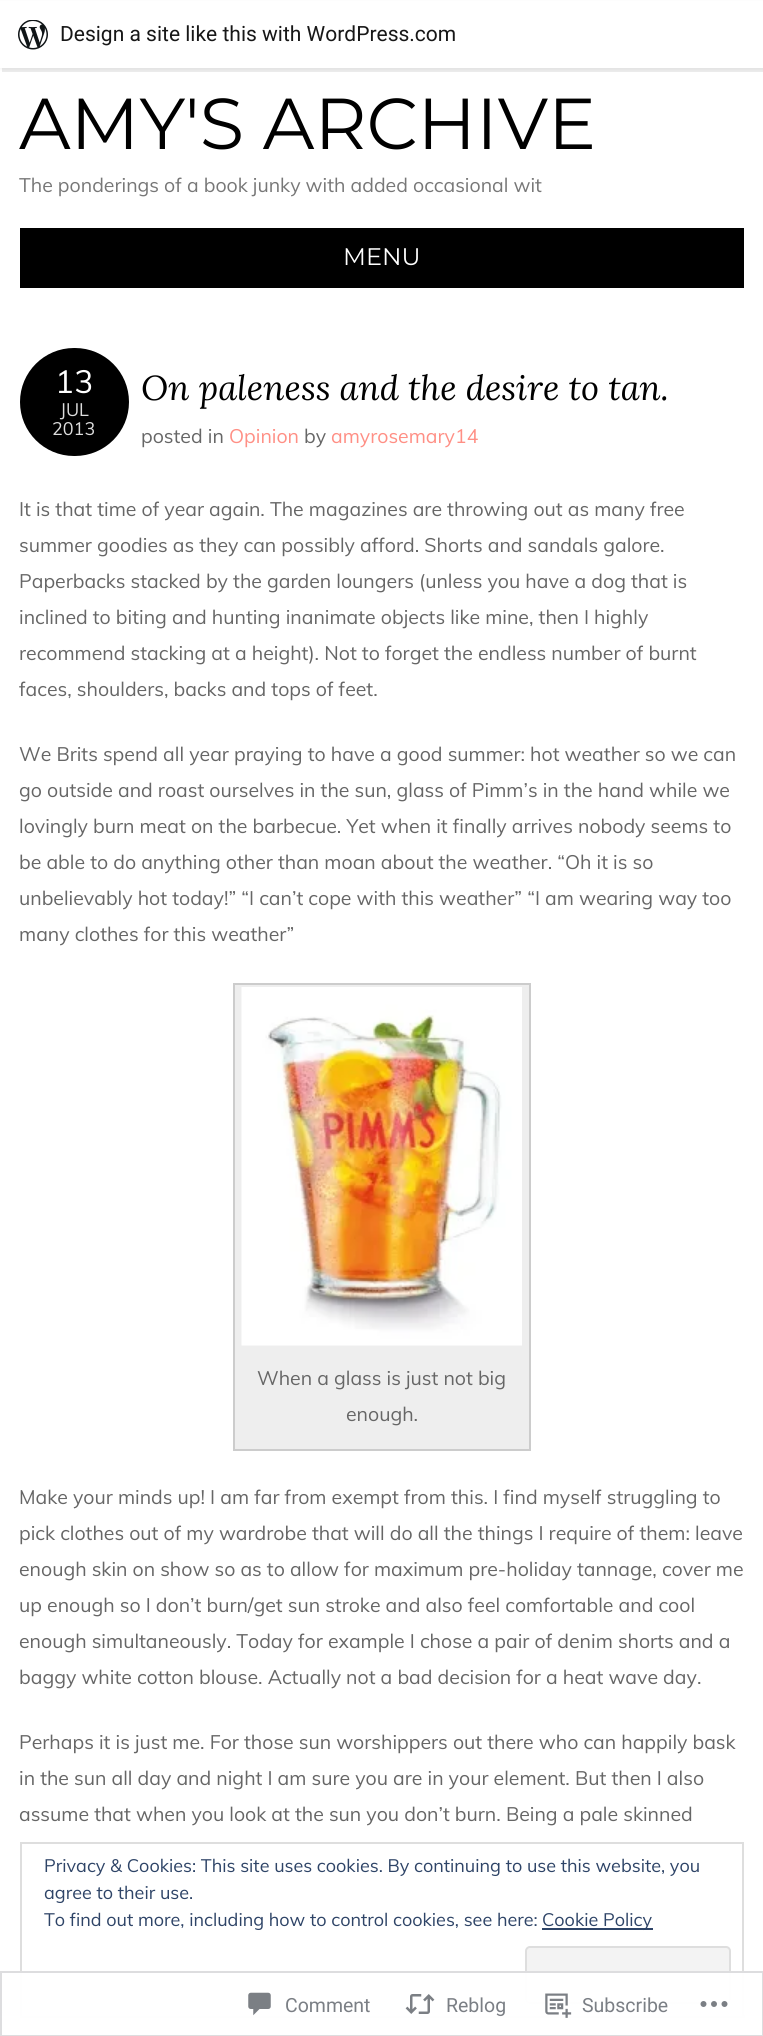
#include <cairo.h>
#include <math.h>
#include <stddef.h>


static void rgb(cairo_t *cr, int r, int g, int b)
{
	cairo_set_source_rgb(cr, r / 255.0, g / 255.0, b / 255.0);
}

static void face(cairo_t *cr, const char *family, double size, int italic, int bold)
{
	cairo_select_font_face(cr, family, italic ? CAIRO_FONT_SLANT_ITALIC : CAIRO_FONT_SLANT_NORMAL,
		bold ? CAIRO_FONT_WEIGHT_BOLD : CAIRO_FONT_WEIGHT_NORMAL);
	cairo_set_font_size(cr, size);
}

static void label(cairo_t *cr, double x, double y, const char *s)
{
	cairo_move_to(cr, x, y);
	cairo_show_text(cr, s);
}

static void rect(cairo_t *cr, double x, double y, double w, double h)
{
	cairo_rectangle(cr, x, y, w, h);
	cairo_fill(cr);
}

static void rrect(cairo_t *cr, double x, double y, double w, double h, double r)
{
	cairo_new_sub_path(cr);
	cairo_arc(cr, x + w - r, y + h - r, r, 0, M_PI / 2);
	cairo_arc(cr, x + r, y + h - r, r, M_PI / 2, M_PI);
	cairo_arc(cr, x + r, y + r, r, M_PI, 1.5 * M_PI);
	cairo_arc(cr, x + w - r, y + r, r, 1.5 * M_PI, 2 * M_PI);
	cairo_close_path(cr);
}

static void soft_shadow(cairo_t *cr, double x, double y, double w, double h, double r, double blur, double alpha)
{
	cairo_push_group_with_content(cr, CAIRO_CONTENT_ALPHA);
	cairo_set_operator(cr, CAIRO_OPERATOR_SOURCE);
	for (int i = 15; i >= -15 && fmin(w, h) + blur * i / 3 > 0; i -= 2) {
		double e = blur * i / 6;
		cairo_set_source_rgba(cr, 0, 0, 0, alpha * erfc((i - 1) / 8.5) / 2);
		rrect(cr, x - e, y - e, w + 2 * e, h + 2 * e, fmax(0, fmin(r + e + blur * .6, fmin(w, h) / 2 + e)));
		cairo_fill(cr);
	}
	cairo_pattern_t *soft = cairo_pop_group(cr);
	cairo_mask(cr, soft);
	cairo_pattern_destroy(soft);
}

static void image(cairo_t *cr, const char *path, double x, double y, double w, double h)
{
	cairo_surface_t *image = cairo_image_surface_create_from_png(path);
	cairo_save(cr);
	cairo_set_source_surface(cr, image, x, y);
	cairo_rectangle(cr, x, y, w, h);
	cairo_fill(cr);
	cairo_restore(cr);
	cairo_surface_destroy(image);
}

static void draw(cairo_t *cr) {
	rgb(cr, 255, 255, 255);
	cairo_paint(cr);
	rgb(cr, 0, 0, 0);
	soft_shadow(cr, 0, 2, 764, 67, 0, 1.5, 0.05);
	cairo_set_source_rgba(cr, 0, 0, 0, 0.08);
	cairo_new_path(cr);
	cairo_move_to(cr, 2, 68);
	cairo_line_to(cr, 2, 72);
	cairo_line_to(cr, 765, 72);
	cairo_line_to(cr, 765, 5);
	cairo_line_to(cr, 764, 5);
	cairo_line_to(cr, 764, 68);
	cairo_close_path(cr);
	cairo_fill(cr);
	rgb(cr, 255, 255, 255);
	rect(cr, 0, 1, 763, 67);
	image(cr, "image0.png", 18, 20, 30, 30);
	face(cr, "Roboto", 21, 0, 0);
	rgb(cr, 23, 23, 23);
	label(cr, 60, 41, "Design a site like this with WordPress.com");
	face(cr, "Montserrat", 72, 0, 0);
	rgb(cr, 0, 0, 0);
	label(cr, 19, 149, "AMY'S ARCHIVE");
	face(cr, "Muli", 19.5, 0, 0);
	rgb(cr, 119, 119, 119);
	label(cr, 19, 192, "The ponderings of a book junky with added occasional wit");
	rgb(cr, 0, 0, 0);
	rect(cr, 20, 228, 724, 60);
	face(cr, "Montserrat", 24, 0, 0);
	rgb(cr, 255, 255, 255);
	label(cr, 343, 265, "MENU");
	rgb(cr, 0, 0, 0);
	rrect(cr, 20, 348, 109, 108, 54);
	cairo_fill(cr);
	face(cr, "Muli", 32, 0, 0);
	rgb(cr, 255, 255, 255);
	label(cr, 55, 393, "13");
	face(cr, "Muli", 18, 0, 0);
	rgb(cr, 221, 221, 221);
	label(cr, 60, 416, "JUL");
	label(cr, 52, 435, "2013");
	face(cr, "Lora", 34.5, 1, 0);
	rgb(cr, 0, 0, 0);
	label(cr, 141, 400, "On paleness and the desire to tan.");
	face(cr, "Muli", 19.5, 0, 0);
	rgb(cr, 102, 102, 102);
	label(cr, 141, 443, "posted in");
	rgb(cr, 255, 143, 133);
	label(cr, 229, 443, "Opinion");
	rgb(cr, 102, 102, 102);
	label(cr, 304, 443, "by");
	rgb(cr, 255, 143, 133);
	label(cr, 331, 443, "amyrosemary14");
	rgb(cr, 102, 102, 102);
	label(cr, 19, 516, "It is that time of year again. The magazines are throwing out as many free");
	label(cr, 19, 552, "summer goodies as they can possibly afford. Shorts and sandals galore.");
	label(cr, 19, 588, "Paperbacks stacked by the garden loungers (unless you have a dog that is");
	label(cr, 19, 624, "inclined to biting and hunting inanimate objects like mine, then I highly");
	label(cr, 19, 660, "recommend stacking at a height). Not to forget the endless number of burnt");
	label(cr, 19, 696, "faces, shoulders, backs and tops of feet.");
	label(cr, 19, 761, "We Brits spend all year praying to have a good summer: hot weather so we can");
	label(cr, 19, 797, "go outside and roast ourselves in the sun, glass of Pimm’s in the hand while we");
	label(cr, 19, 833, "lovingly burn meat on the barbecue. Yet when it finally arrives nobody seems to");
	label(cr, 19, 869, "be able to do anything other than moan about the weather. “Oh it is so");
	label(cr, 19, 905, "unbelievably hot today!” “I can’t cope with this weather” “I am wearing way too");
	label(cr, 19, 941, "many clothes for this weather”");
	rgb(cr, 238, 238, 238);
	cairo_rectangle(cr, 234, 984, 296, 466);
	cairo_fill_preserve(cr);
	rgb(cr, 204, 204, 204);
	cairo_stroke(cr);
	image(cr, "image1.png", 241, 987, 281, 359);
	rgb(cr, 102, 102, 102);
	label(cr, 257, 1385, "When a glass is just not big");
	label(cr, 346, 1421, "enough.");
	label(cr, 19, 1504, "Make your minds up! I am far from exempt from this. I find myself struggling to");
	label(cr, 19, 1540, "pick clothes out of my wardrobe that will do all the things I require of them: leave");
	label(cr, 19, 1576, "enough skin on show so as to allow for maximum pre-holiday tannage, cover me");
	label(cr, 19, 1612, "up enough so I don’t burn/get sun stroke and also feel comfortable and cool");
	label(cr, 19, 1648, "enough simultaneously. Today for example I chose a pair of denim shorts and a");
	label(cr, 19, 1684, "baggy white cotton blouse. Actually not a bad decision for a heat wave day.");
	label(cr, 19, 1749, "Perhaps it is just me. For those sun worshippers out there who can happily bask");
	label(cr, 19, 1785, "in the sun all day and night I am sure you are in your element. But then I also");
	label(cr, 19, 1821, "assume that when you look at the sun you don’t burn. Being a pale skinned");
	image(cr, "image2.png", 744, 2007, 1, 11);
	cairo_rectangle(cr, 21, 1843, 722, 174);
	rgb(cr, 222, 222, 222);
	cairo_stroke(cr);
	face(cr, "Muli", 18, 0, 0);
	rgb(cr, 46, 68, 103);
	label(cr, 44, 1872, "Privacy & Cookies: This site uses cookies. By continuing to use this website, you");
	label(cr, 44, 1899, "agree to their use.");
	label(cr, 44, 1926, "To find out more, including how to control cookies, see here:");
	rect(cr, 542, 1928, 111, 2);
	label(cr, 542, 1926, "Cookie Policy");
	rgb(cr, 243, 243, 243);
	rrect(cr, 526, 1947, 204, 56, 4);
	cairo_fill_preserve(cr);
	rgb(cr, 222, 222, 222);
	cairo_stroke(cr);
	cairo_set_source_rgba(cr, 1, 1, 1, 0.98);
	rect(cr, 20, 1971, 725, 47);
	cairo_rectangle(cr, 1, 1972, 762, 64);
	cairo_set_source_rgba(cr, 0.863, 0.863, 0.871, 0.98);
	cairo_stroke(cr);
	image(cr, "image3.png", 248, 1992, 23, 24);
	face(cr, "Roboto", 19.5, 0, 0);
	rgb(cr, 123, 127, 133);
	label(cr, 285, 2012, "Comment");
	image(cr, "image4.png", 405, 1994, 30, 20);
	label(cr, 446, 2012, "Reblog");
	image(cr, "image5.png", 545, 1993, 27, 25);
	label(cr, 582, 2012, "Subscribe");
	image(cr, "image6.png", 700, 2001, 28, 6);
}

int main(void) {
	cairo_surface_t *surface = cairo_image_surface_create(CAIRO_FORMAT_RGB24, 763, 2036);
	cairo_t *cr = cairo_create(surface);
	cairo_font_options_t *options = cairo_font_options_create();
	cairo_font_options_set_hint_metrics(options, CAIRO_HINT_METRICS_OFF);
	cairo_font_options_set_hint_style(options, CAIRO_HINT_STYLE_NONE);
	cairo_set_font_options(cr, options);
	cairo_set_miter_limit(cr, 4);
	draw(cr);
	cairo_surface_write_to_png(surface, "render.png");
	cairo_font_options_destroy(options);
	cairo_destroy(cr);
	cairo_surface_destroy(surface);
	return 0;
}
